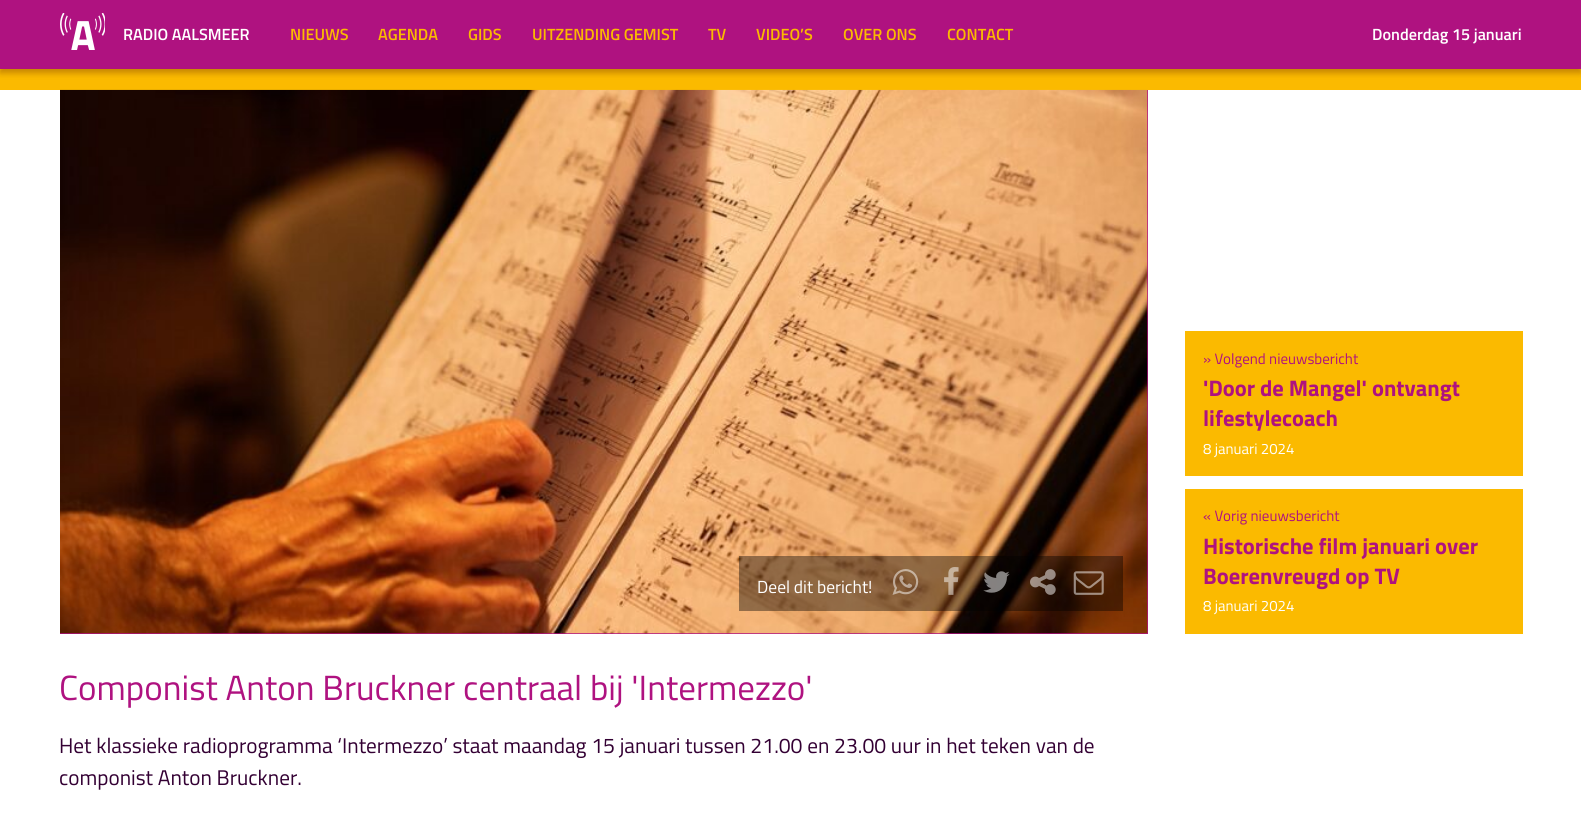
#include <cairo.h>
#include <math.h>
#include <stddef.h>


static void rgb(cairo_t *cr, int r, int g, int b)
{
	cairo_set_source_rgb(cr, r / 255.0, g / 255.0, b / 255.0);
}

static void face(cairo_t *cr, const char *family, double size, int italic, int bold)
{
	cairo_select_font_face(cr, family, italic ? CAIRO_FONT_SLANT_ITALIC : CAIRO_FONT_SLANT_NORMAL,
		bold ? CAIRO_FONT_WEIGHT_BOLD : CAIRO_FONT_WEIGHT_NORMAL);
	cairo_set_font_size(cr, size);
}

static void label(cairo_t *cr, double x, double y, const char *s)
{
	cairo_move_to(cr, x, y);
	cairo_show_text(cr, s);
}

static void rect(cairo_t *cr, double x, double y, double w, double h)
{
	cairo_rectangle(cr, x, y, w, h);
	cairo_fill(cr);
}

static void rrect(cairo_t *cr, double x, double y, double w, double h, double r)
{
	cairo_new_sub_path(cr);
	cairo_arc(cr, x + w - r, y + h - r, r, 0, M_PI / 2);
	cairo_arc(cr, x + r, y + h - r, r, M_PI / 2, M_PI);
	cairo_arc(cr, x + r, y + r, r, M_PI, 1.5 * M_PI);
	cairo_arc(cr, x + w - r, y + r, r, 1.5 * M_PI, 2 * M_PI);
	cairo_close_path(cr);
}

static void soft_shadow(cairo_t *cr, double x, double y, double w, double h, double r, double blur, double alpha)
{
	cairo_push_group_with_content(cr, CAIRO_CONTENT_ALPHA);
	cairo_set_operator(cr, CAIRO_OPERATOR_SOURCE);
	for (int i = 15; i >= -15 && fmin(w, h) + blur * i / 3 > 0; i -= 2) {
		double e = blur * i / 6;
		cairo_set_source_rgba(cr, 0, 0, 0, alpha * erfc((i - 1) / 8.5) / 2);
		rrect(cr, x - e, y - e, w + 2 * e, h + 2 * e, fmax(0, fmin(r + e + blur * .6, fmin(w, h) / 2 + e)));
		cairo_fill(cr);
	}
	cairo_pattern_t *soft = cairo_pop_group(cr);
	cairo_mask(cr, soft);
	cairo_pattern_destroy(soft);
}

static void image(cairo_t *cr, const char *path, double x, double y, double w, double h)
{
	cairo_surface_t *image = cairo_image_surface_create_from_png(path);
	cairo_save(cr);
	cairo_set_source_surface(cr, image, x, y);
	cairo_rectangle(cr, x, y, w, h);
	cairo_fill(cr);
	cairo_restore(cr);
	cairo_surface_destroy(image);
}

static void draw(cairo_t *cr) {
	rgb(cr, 255, 255, 255);
	cairo_paint(cr);
	rgb(cr, 251, 186, 0);
	rect(cr, 0, 69, 1581, 21);
	rgb(cr, 67, 11, 10);
	soft_shadow(cr, 0, 4, 1581, 69, 0, 3, 0.3);
	rgb(cr, 175, 18, 128);
	rect(cr, 0, 0, 1581, 69);
	image(cr, "image0.png", 60, 13, 45, 37);
	face(cr, "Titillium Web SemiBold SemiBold", 16.25, 0, 0);
	rgb(cr, 255, 255, 255);
	label(cr, 123, 40, "RADIO AALSMEER");
	rgb(cr, 251, 186, 0);
	label(cr, 290, 40, "NIEUWS");
	label(cr, 378, 40, "AGENDA");
	label(cr, 468, 40, "GIDS");
	label(cr, 532, 40, "UITZENDING GEMIST");
	label(cr, 708, 40, "TV");
	label(cr, 756, 40, "VIDEO’S");
	label(cr, 843, 40, "OVER ONS");
	label(cr, 947, 40, "CONTACT");
	rgb(cr, 255, 255, 255);
	label(cr, 1372, 40, "Donderdag 15 januari");
	rgb(cr, 175, 18, 128);
	rect(cr, 60, 90, 1088, 544);
	image(cr, "image1.png", 60, 89, 1088, 545);
	cairo_set_source_rgba(cr, 0, 0, 0, 0.4);
	rect(cr, 739, 556, 384, 55);
	face(cr, "Titillium Web", 17.5, 0, 0);
	rgb(cr, 255, 255, 255);
	label(cr, 757, 593, "Deel dit bericht!");
	image(cr, "image2.png", 892, 569, 27, 26);
	image(cr, "image3.png", 944, 567, 15, 28);
	image(cr, "image4.png", 983, 571, 27, 22);
	image(cr, "image5.png", 1030, 569, 26, 26);
	image(cr, "image6.png", 1073, 571, 31, 24);
	rgb(cr, 251, 186, 0);
	rect(cr, 1185, 331, 338, 145);
	face(cr, "Titillium Web", 15, 0, 0);
	rgb(cr, 175, 18, 128);
	label(cr, 1203, 364, "» Volgend nieuwsbericht");
	face(cr, "Titillium Web", 22.5, 0, 1);
	label(cr, 1203, 396, "'Door de Mangel' ontvangt");
	label(cr, 1203, 426, "lifestylecoach");
	face(cr, "Titillium Web", 15, 0, 0);
	rgb(cr, 255, 255, 255);
	label(cr, 1203, 454, "8 januari 2024");
	rgb(cr, 251, 186, 0);
	rect(cr, 1185, 489, 338, 145);
	rgb(cr, 175, 18, 128);
	label(cr, 1203, 521, "« Vorig nieuwsbericht");
	face(cr, "Titillium Web", 22.5, 0, 1);
	label(cr, 1203, 554, "Historische film januari over");
	label(cr, 1203, 584, "Boerenvreugd op TV");
	face(cr, "Titillium Web", 15, 0, 0);
	rgb(cr, 255, 255, 255);
	label(cr, 1203, 611, "8 januari 2024");
	face(cr, "Titillium Web", 35, 0, 0);
	rgb(cr, 175, 18, 128);
	label(cr, 59, 700, "Componist Anton Bruckner centraal bij 'Intermezzo'");
	face(cr, "Titillium Web", 21.25, 0, 0);
	rgb(cr, 51, 0, 51);
	label(cr, 59, 753, "Het klassieke radioprogramma ‘Intermezzo’ staat maandag 15 januari tussen 21.00 en 23.00 uur in het teken van de");
	label(cr, 59, 785, "componist Anton Bruckner.");
}

int main(void) {
	cairo_surface_t *surface = cairo_image_surface_create(CAIRO_FORMAT_RGB24, 1581, 825);
	cairo_t *cr = cairo_create(surface);
	cairo_font_options_t *options = cairo_font_options_create();
	cairo_font_options_set_hint_metrics(options, CAIRO_HINT_METRICS_OFF);
	cairo_font_options_set_hint_style(options, CAIRO_HINT_STYLE_NONE);
	cairo_set_font_options(cr, options);
	cairo_set_miter_limit(cr, 4);
	draw(cr);
	cairo_surface_write_to_png(surface, "render.png");
	cairo_font_options_destroy(options);
	cairo_destroy(cr);
	cairo_surface_destroy(surface);
	return 0;
}
